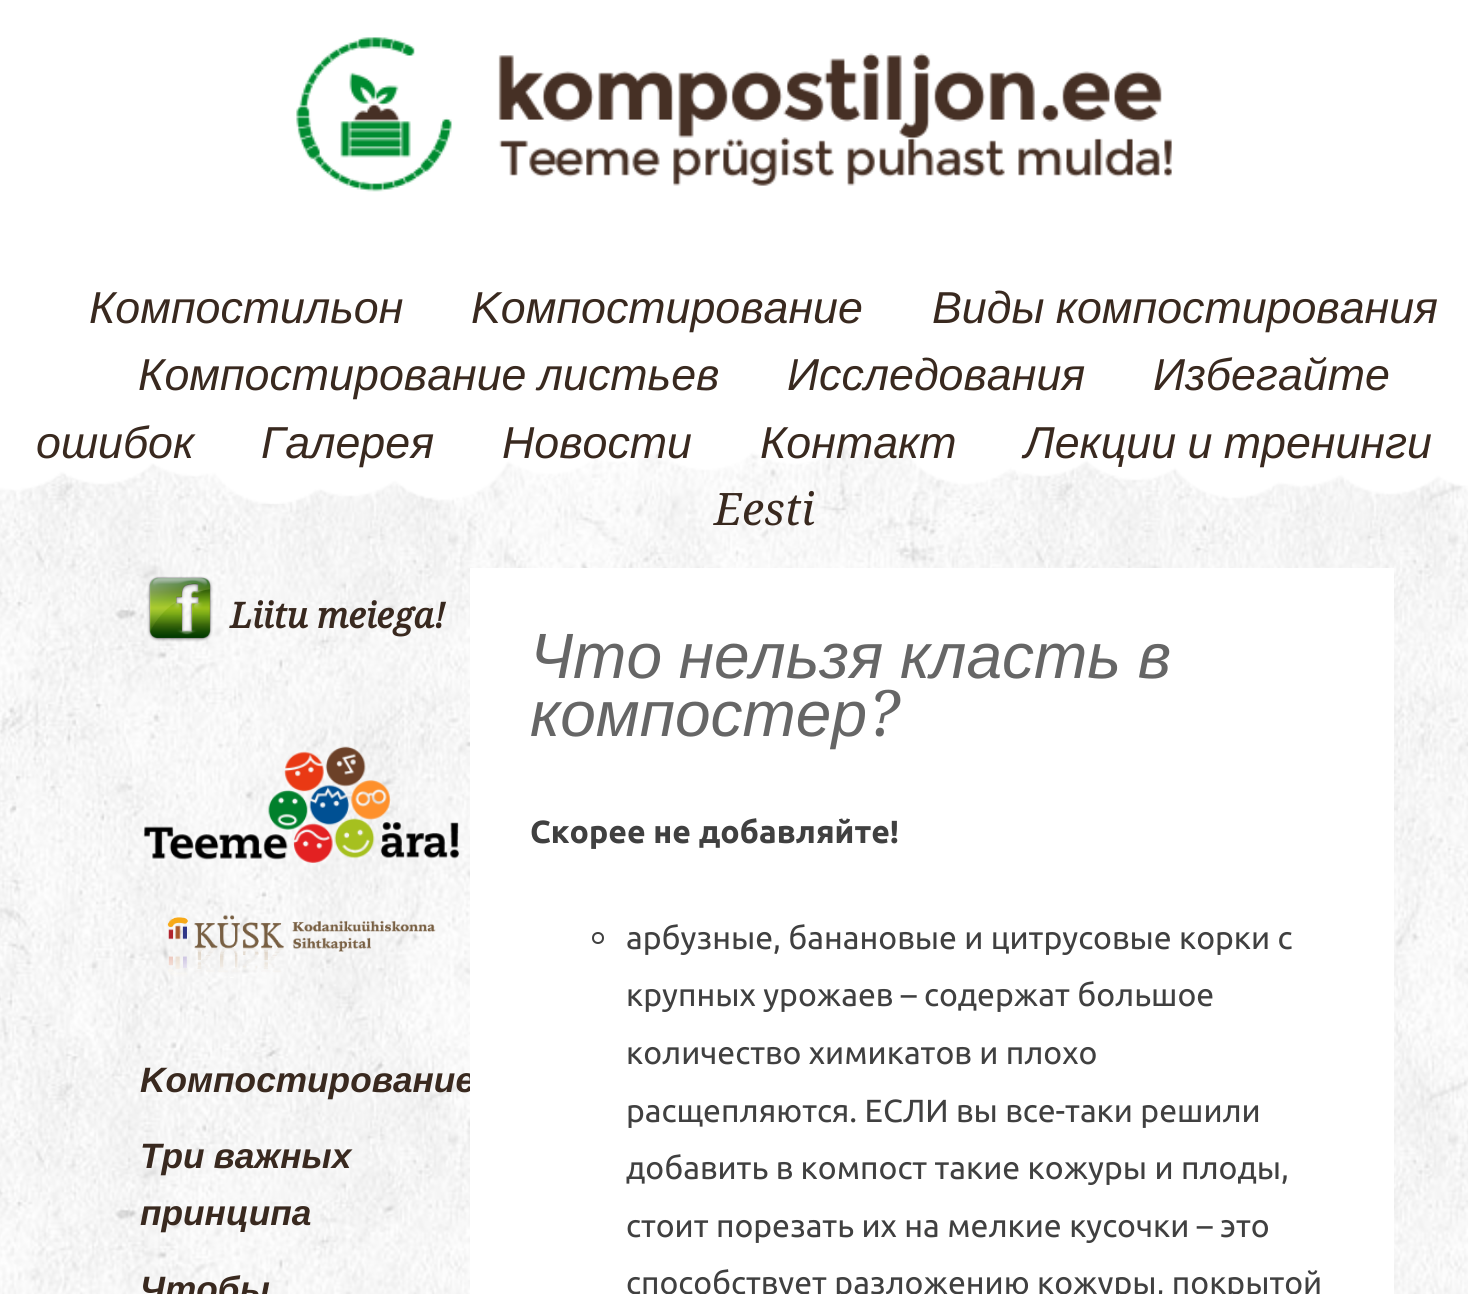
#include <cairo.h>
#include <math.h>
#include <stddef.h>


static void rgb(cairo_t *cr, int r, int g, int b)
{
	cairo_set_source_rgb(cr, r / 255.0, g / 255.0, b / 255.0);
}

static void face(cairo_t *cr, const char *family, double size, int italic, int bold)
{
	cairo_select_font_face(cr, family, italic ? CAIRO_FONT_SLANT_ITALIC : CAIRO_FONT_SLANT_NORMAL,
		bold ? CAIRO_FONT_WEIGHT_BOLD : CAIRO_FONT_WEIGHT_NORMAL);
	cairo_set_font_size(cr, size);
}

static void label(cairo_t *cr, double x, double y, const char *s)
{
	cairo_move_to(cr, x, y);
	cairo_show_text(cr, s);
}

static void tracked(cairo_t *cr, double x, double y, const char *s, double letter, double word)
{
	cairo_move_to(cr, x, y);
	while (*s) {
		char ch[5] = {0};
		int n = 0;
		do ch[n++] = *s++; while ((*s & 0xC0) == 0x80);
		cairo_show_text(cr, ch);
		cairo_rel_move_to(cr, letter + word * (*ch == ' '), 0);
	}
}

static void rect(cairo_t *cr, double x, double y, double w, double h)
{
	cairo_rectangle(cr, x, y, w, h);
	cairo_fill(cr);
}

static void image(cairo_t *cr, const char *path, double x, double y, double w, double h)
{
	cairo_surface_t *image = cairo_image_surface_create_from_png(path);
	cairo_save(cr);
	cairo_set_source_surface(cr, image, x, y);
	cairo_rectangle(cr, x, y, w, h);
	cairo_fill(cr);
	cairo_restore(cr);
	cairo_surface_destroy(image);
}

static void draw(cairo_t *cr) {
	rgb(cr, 255, 255, 255);
	cairo_paint(cr);
	image(cr, "image0.png", 0, 441, 1468, 853);
	image(cr, "image1.png", 0, 0, 1468, 504);
	image(cr, "image2.png", 296, 37, 876, 155);
	face(cr, "Liberation Sans", 44.75, 1, 0);
	rgb(cr, 57, 41, 31);
	label(cr, 89, 323, "Компостильон");
	label(cr, 471, 323, "Kомпостирование");
	tracked(cr, 932, 323, "Виды компостирования", 0, -1);
	tracked(cr, 138, 390, "Компостирование листьев", 0, -1);
	label(cr, 787, 390, "Исследования");
	label(cr, 1153, 390, "Избегайте");
	label(cr, 36, 458, "ошибок");
	label(cr, 261, 458, "Галерея");
	label(cr, 502, 458, "Новости");
	label(cr, 760, 458, "Контакт");
	tracked(cr, 1024, 458, "Лекции и тренинги", 0, -1);
	face(cr, "Droid Serif", 44.75, 1, 0);
	label(cr, 714, 525, "Eesti");
	image(cr, "image3.png", 147, 576, 66, 66);
	face(cr, "Droid Serif", 35.25, 1, 1);
	label(cr, 230, 628, "Liitu meiega!");
	image(cr, "image4.png", 143, 746, 317, 117);
	image(cr, "image5.png", 167, 915, 269, 63);
	face(cr, "Liberation Sans", 35.25, 1, 1);
	label(cr, 140, 1092, "Kомпостирование");
	tracked(cr, 140, 1168, "Три важных", 0, -1);
	label(cr, 140, 1225, "принципа");
	label(cr, 140, 1301, "Чтобы");
	rgb(cr, 255, 255, 255);
	rect(cr, 470, 568, 924, 726);
	face(cr, "Liberation Sans", 64, 1, 0);
	rgb(cr, 102, 102, 102);
	tracked(cr, 530, 678, "Что нельзя класть в", 0, -1);
	label(cr, 530, 736, "компостер");
	face(cr, "Droid Serif", 64, 1, 0);
	label(cr, 867, 736, "?");
	face(cr, "Ubuntu", 32, 0, 1);
	rgb(cr, 64, 64, 64);
	label(cr, 530, 843, "Скорее не добавляйте!");
	cairo_new_path(cr);
	cairo_arc(cr, 598, 938, 5, 0, 2 * M_PI);
	cairo_stroke(cr);
	face(cr, "Ubuntu", 32, 0, 0);
	label(cr, 626, 949, "арбузные, банановые и цитрусовые корки с");
	label(cr, 626, 1006, "крупных урожаев – содержат большое");
	label(cr, 626, 1064, "количество химикатов и плохо");
	label(cr, 626, 1122, "расщепляются. ЕСЛИ вы все-таки решили");
	label(cr, 626, 1179, "добавить в компост такие кожуры и плоды,");
	label(cr, 626, 1237, "стоит порезать их на мелкие кусочки – это");
	label(cr, 626, 1294, "способствует разложению кожуры, покрытой");
}

int main(void) {
	cairo_surface_t *surface = cairo_image_surface_create(CAIRO_FORMAT_RGB24, 1468, 1294);
	cairo_t *cr = cairo_create(surface);
	cairo_font_options_t *options = cairo_font_options_create();
	cairo_font_options_set_hint_metrics(options, CAIRO_HINT_METRICS_OFF);
	cairo_font_options_set_hint_style(options, CAIRO_HINT_STYLE_NONE);
	cairo_set_font_options(cr, options);
	cairo_set_miter_limit(cr, 4);
	draw(cr);
	cairo_surface_write_to_png(surface, "render.png");
	cairo_font_options_destroy(options);
	cairo_destroy(cr);
	cairo_surface_destroy(surface);
	return 0;
}
